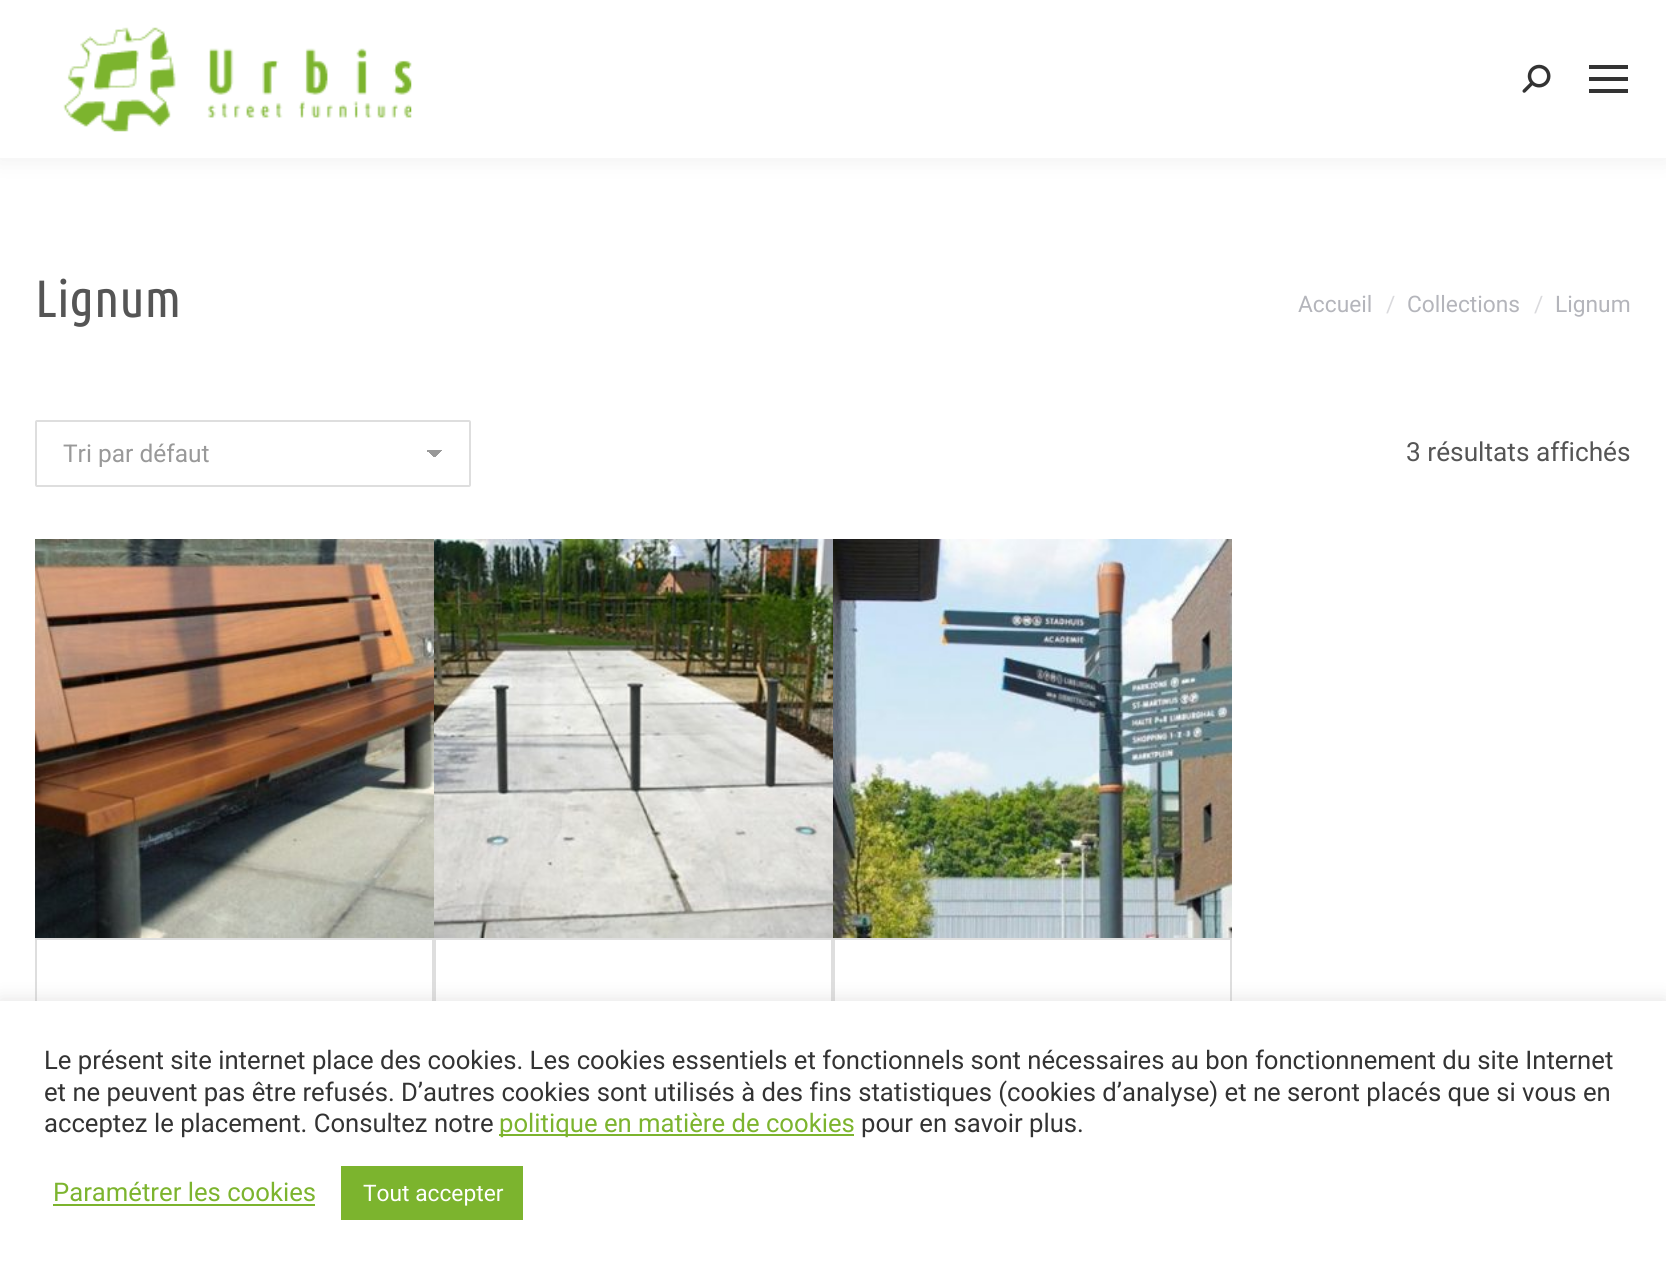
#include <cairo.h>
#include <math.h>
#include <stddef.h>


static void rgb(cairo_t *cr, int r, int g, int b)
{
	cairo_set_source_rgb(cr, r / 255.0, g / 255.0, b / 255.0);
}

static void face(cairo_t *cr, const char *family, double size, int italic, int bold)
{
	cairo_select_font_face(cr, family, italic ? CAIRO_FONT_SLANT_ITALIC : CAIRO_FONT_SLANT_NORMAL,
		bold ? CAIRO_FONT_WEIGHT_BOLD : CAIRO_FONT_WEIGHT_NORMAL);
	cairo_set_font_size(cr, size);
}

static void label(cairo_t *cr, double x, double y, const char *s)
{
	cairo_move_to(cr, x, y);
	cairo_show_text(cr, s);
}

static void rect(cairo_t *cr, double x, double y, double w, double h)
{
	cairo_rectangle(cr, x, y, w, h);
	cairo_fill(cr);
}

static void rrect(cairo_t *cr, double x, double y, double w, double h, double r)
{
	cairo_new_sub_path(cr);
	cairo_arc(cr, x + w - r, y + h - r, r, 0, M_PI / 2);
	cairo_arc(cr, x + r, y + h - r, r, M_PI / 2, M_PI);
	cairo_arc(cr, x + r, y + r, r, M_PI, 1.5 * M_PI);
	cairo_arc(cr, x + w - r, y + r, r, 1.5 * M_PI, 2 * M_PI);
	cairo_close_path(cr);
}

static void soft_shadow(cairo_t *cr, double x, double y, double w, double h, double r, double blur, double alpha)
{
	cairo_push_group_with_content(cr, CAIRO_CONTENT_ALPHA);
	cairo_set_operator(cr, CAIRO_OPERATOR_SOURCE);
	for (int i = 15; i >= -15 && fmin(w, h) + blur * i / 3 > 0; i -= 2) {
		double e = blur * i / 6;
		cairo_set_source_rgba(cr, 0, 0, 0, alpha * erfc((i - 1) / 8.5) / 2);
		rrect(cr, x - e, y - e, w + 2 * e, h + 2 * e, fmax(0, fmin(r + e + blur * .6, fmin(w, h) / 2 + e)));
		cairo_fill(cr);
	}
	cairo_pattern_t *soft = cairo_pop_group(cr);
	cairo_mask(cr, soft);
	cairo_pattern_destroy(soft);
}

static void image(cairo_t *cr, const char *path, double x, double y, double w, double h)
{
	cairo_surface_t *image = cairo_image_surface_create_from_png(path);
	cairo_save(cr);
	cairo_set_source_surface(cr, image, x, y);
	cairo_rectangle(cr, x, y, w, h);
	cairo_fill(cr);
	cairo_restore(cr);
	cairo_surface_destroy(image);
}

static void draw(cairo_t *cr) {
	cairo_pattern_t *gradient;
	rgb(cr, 255, 255, 255);
	cairo_paint(cr);
	rgb(cr, 0, 0, 0);
	soft_shadow(cr, -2, -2, 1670, 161, 0, 13, 0.07);
	rgb(cr, 255, 255, 255);
	rect(cr, 0, 0, 1666, 158);
	image(cr, "image0.png", 63, 27, 349, 105);
	image(cr, "image1.png", 1522, 64, 29, 29);
	rgb(cr, 51, 51, 51);
	rect(cr, 1589, 65, 39, 4);
	rect(cr, 1589, 77, 39, 4);
	rect(cr, 1589, 89, 39, 4);
	face(cr, "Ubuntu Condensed", 52.5, 0, 0);
	rgb(cr, 85, 85, 85);
	label(cr, 35, 317, "Lignum");
	face(cr, "Roboto", 22.75, 0, 0);
	rgb(cr, 180, 181, 187);
	label(cr, 1298, 312, "Accueil");
	rgb(cr, 218, 218, 221);
	label(cr, 1386, 312, "/");
	rgb(cr, 180, 181, 187);
	label(cr, 1407, 312, "Collections");
	rgb(cr, 218, 218, 221);
	label(cr, 1534, 312, "/");
	rgb(cr, 180, 181, 187);
	label(cr, 1555, 312, "Lignum");
	gradient = cairo_pattern_create_linear(434, 449, 443, 458);
	cairo_pattern_add_color_stop_rgba(gradient, 0.5, 0.6, 0.6, 0.6, 1);
	cairo_pattern_add_color_stop_rgba(gradient, 0.5, 1, 1, 1, 1);
	cairo_set_source(cr, gradient);
	cairo_pattern_destroy(gradient);
	rect(cr, 434, 450, 8, 7);
	gradient = cairo_pattern_create_linear(425, 458, 434, 449);
	cairo_pattern_add_color_stop_rgba(gradient, 0.5, 1, 1, 1, 1);
	cairo_pattern_add_color_stop_rgba(gradient, 0.5, 0.6, 0.6, 0.6, 1);
	cairo_set_source(cr, gradient);
	cairo_pattern_destroy(gradient);
	rect(cr, 427, 450, 7, 7);
	rrect(cr, 36, 421, 434, 65, 1);
	rgb(cr, 222, 222, 222);
	cairo_stroke(cr);
	face(cr, "Roboto", 24.5, 0, 0);
	rgb(cr, 153, 153, 153);
	label(cr, 63, 462, "Tri par défaut");
	face(cr, "Roboto", 26.25, 0, 0);
	rgb(cr, 85, 85, 85);
	label(cr, 1406, 461, "3 résultats affichés");
	image(cr, "image2.png", 35, 539, 399, 399);
	cairo_rectangle(cr, 36, 939, 397, 240);
	rgb(cr, 222, 222, 222);
	cairo_stroke(cr);
	image(cr, "image3.png", 434, 539, 399, 399);
	cairo_rectangle(cr, 435, 939, 397, 240);
	cairo_stroke(cr);
	image(cr, "image4.png", 833, 539, 399, 399);
	cairo_rectangle(cr, 834, 939, 397, 240);
	cairo_stroke(cr);
	rgb(cr, 172, 171, 171);
	soft_shadow(cr, 0, 999, 1666, 272, 0, 9, 0.3);
	rgb(cr, 255, 255, 255);
	rect(cr, 0, 1001, 1666, 271);
	face(cr, "Roboto", 25.67, 0, 0);
	rgb(cr, 51, 51, 51);
	label(cr, 44, 1069, "Le présent site internet place des cookies. Les cookies essentiels et fonctionnels sont nécessaires au bon fonctionnement du site Internet");
	label(cr, 44, 1101, "et ne peuvent pas être refusés. D’autres cookies sont utilisés à des fins statistiques (cookies d’analyse) et ne seront placés que si vous en");
	label(cr, 44, 1132, "acceptez le placement. Consultez notre");
	rgb(cr, 124, 180, 46);
	rect(cr, 499, 1134, 355, 2);
	label(cr, 499, 1132, "politique en matière de cookies");
	rgb(cr, 51, 51, 51);
	label(cr, 861, 1132, "pour en savoir plus.");
	rgb(cr, 124, 180, 46);
	label(cr, 53, 1201, "Paramétrer les cookies");
	rect(cr, 53, 1204, 262, 2);
	rect(cr, 341, 1166, 182, 54);
	face(cr, "Roboto", 22.75, 0, 0);
	rgb(cr, 255, 255, 255);
	label(cr, 363, 1201, "Tout accepter");
}

int main(void) {
	cairo_surface_t *surface = cairo_image_surface_create(CAIRO_FORMAT_RGB24, 1666, 1272);
	cairo_t *cr = cairo_create(surface);
	cairo_font_options_t *options = cairo_font_options_create();
	cairo_font_options_set_hint_metrics(options, CAIRO_HINT_METRICS_OFF);
	cairo_font_options_set_hint_style(options, CAIRO_HINT_STYLE_NONE);
	cairo_set_font_options(cr, options);
	cairo_set_miter_limit(cr, 4);
	draw(cr);
	cairo_surface_write_to_png(surface, "render.png");
	cairo_font_options_destroy(options);
	cairo_destroy(cr);
	cairo_surface_destroy(surface);
	return 0;
}
